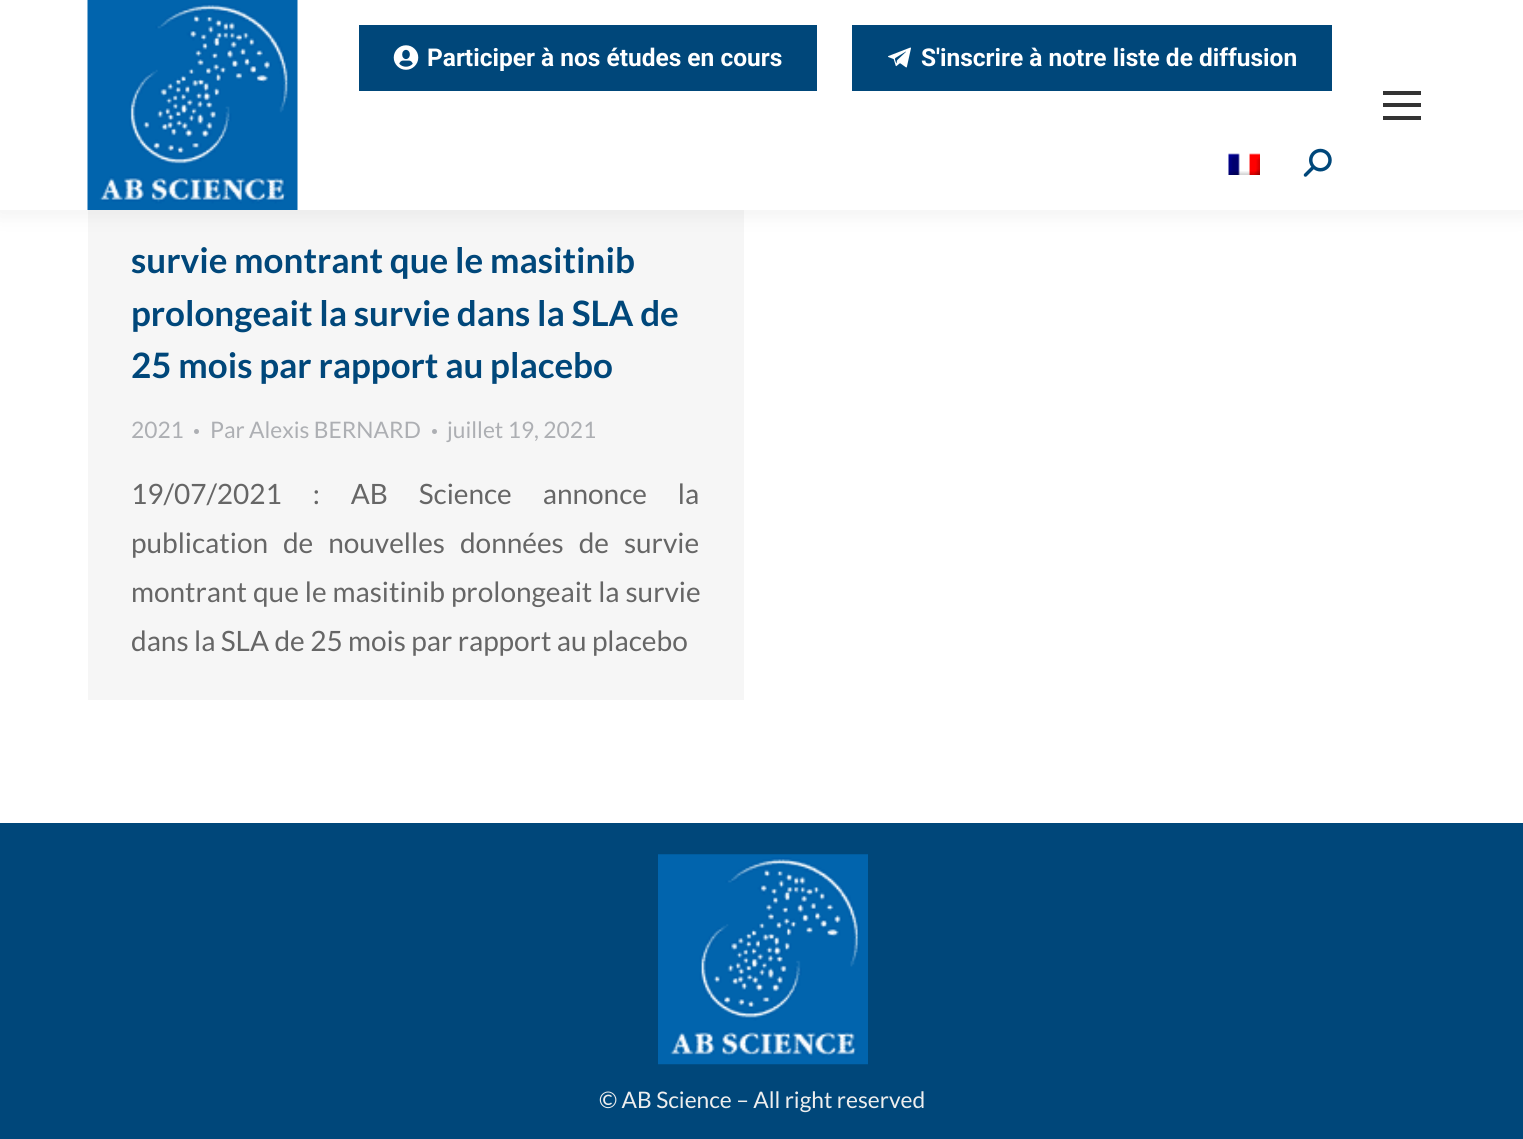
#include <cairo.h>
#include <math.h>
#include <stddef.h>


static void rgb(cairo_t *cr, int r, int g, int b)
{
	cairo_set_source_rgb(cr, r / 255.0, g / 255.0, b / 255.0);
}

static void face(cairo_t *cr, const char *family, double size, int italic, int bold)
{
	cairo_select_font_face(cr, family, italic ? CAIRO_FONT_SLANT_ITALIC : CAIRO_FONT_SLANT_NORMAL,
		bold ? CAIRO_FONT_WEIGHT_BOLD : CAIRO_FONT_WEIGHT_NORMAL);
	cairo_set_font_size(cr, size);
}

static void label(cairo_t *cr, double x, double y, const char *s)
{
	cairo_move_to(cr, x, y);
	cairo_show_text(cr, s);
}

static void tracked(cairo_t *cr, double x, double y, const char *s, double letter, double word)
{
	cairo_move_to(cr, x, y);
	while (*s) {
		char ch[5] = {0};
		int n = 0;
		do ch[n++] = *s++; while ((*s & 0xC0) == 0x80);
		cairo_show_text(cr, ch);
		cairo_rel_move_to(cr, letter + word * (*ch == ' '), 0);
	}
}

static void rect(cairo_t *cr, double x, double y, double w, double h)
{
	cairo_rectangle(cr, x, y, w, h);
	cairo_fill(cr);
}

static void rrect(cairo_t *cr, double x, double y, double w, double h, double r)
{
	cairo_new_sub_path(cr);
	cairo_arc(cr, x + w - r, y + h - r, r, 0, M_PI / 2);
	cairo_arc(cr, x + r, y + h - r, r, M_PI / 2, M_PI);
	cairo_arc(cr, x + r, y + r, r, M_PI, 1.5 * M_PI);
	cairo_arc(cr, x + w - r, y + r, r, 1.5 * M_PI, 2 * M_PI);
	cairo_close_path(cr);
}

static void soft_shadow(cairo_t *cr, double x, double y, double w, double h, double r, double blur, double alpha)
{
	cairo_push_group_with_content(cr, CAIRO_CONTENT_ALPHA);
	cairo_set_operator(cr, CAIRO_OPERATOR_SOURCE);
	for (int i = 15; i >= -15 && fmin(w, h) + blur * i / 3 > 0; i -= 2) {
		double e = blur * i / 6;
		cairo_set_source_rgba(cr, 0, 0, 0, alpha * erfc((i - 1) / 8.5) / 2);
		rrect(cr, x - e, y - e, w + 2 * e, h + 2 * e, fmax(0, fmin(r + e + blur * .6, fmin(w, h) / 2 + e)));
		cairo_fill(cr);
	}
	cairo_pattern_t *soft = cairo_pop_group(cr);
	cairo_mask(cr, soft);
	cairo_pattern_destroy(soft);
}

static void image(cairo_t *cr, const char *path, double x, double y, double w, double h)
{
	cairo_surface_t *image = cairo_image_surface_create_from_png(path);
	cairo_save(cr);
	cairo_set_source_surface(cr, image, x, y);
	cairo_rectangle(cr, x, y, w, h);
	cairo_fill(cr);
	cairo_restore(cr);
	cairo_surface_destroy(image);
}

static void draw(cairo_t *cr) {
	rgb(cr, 255, 255, 255);
	cairo_paint(cr);
	rgb(cr, 246, 246, 246);
	rect(cr, 88, 210, 656, 490);
	rgb(cr, 0, 0, 0);
	soft_shadow(cr, -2, -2, 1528, 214, 0, 13, 0.07);
	rgb(cr, 255, 255, 255);
	rect(cr, 0, 0, 1523, 210);
	image(cr, "image0.png", 87, 0, 211, 210);
	rgb(cr, 0, 71, 122);
	rect(cr, 359, 25, 458, 66);
	image(cr, "image1.png", 393, 45, 26, 25);
	face(cr, "Roboto", 24.5, 0, 1);
	rgb(cr, 255, 255, 255);
	label(cr, 427, 66, "Participer à nos études en cours");
	rgb(cr, 0, 71, 122);
	rect(cr, 852, 25, 480, 66);
	image(cr, "image2.png", 888, 47, 23, 21);
	rgb(cr, 255, 255, 255);
	label(cr, 921, 66, "S'inscrire à notre liste de diffusion");
	image(cr, "image3.png", 1228, 153, 32, 22);
	image(cr, "image4.png", 1303, 148, 29, 29);
	rgb(cr, 51, 51, 51);
	rect(cr, 1383, 91, 38, 4);
	rect(cr, 1383, 103, 38, 4);
	rect(cr, 1383, 116, 38, 4);
	face(cr, "Lato", 35, 0, 1);
	rgb(cr, 0, 71, 122);
	label(cr, 131, 273, "survie montrant que le masitinib");
	label(cr, 131, 326, "prolongeait la survie dans la SLA de");
	label(cr, 131, 378, "25 mois par rapport au placebo");
	face(cr, "Lato", 22.75, 0, 0);
	rgb(cr, 173, 175, 179);
	label(cr, 131, 438, "2021");
	cairo_new_path(cr);
	cairo_arc(cr, 196.5, 431.5, 2.5, 0, 2 * M_PI);
	cairo_fill(cr);
	label(cr, 210, 438, "Par Alexis BERNARD");
	cairo_new_path(cr);
	cairo_arc(cr, 434.5, 431.5, 2.5, 0, 2 * M_PI);
	cairo_fill(cr);
	label(cr, 447, 438, "juillet 19, 2021");
	face(cr, "Lato", 28, 0, 0);
	rgb(cr, 102, 102, 102);
	tracked(cr, 131, 504, "19/07/2021 : AB Science annonce la", 0, 25.5);
	tracked(cr, 131, 553, "publication de nouvelles données de survie", 0, 9.5);
	tracked(cr, 131, 602, "montrant que le masitinib prolongeait la survie", 0, 0.5);
	label(cr, 131, 651, "dans la SLA de 25 mois par rapport au placebo");
	rgb(cr, 0, 71, 122);
	rect(cr, 0, 823, 1523, 316);
	image(cr, "image5.png", 658, 854, 210, 211);
	face(cr, "Lato", 22.75, 0, 0);
	rgb(cr, 238, 238, 238);
	label(cr, 599, 1108, "© AB Science – All right reserved");
}

int main(void) {
	cairo_surface_t *surface = cairo_image_surface_create(CAIRO_FORMAT_RGB24, 1523, 1139);
	cairo_t *cr = cairo_create(surface);
	cairo_font_options_t *options = cairo_font_options_create();
	cairo_font_options_set_hint_metrics(options, CAIRO_HINT_METRICS_OFF);
	cairo_font_options_set_hint_style(options, CAIRO_HINT_STYLE_NONE);
	cairo_set_font_options(cr, options);
	cairo_set_miter_limit(cr, 4);
	draw(cr);
	cairo_surface_write_to_png(surface, "render.png");
	cairo_font_options_destroy(options);
	cairo_destroy(cr);
	cairo_surface_destroy(surface);
	return 0;
}
